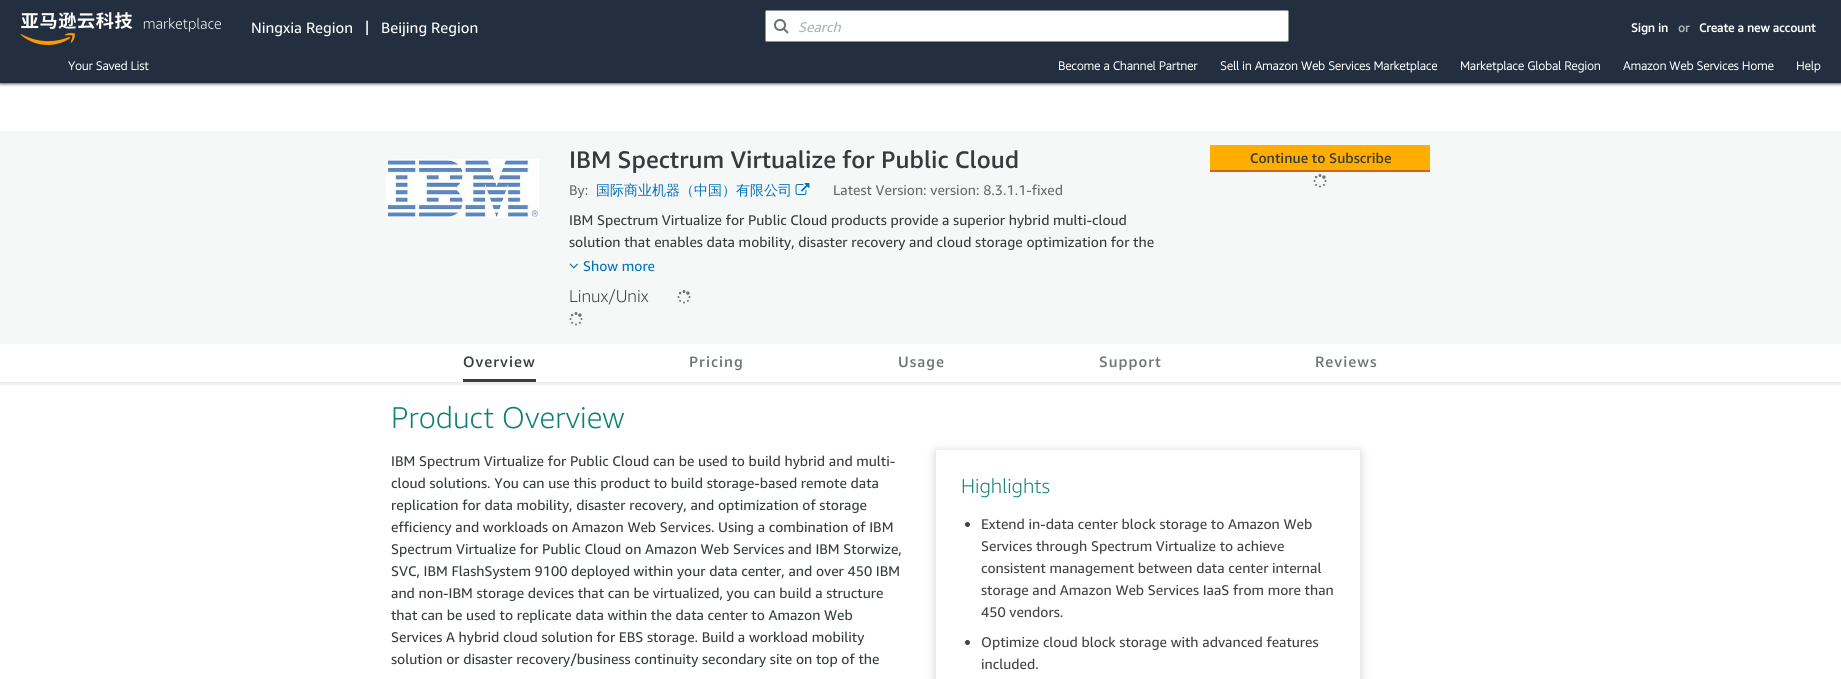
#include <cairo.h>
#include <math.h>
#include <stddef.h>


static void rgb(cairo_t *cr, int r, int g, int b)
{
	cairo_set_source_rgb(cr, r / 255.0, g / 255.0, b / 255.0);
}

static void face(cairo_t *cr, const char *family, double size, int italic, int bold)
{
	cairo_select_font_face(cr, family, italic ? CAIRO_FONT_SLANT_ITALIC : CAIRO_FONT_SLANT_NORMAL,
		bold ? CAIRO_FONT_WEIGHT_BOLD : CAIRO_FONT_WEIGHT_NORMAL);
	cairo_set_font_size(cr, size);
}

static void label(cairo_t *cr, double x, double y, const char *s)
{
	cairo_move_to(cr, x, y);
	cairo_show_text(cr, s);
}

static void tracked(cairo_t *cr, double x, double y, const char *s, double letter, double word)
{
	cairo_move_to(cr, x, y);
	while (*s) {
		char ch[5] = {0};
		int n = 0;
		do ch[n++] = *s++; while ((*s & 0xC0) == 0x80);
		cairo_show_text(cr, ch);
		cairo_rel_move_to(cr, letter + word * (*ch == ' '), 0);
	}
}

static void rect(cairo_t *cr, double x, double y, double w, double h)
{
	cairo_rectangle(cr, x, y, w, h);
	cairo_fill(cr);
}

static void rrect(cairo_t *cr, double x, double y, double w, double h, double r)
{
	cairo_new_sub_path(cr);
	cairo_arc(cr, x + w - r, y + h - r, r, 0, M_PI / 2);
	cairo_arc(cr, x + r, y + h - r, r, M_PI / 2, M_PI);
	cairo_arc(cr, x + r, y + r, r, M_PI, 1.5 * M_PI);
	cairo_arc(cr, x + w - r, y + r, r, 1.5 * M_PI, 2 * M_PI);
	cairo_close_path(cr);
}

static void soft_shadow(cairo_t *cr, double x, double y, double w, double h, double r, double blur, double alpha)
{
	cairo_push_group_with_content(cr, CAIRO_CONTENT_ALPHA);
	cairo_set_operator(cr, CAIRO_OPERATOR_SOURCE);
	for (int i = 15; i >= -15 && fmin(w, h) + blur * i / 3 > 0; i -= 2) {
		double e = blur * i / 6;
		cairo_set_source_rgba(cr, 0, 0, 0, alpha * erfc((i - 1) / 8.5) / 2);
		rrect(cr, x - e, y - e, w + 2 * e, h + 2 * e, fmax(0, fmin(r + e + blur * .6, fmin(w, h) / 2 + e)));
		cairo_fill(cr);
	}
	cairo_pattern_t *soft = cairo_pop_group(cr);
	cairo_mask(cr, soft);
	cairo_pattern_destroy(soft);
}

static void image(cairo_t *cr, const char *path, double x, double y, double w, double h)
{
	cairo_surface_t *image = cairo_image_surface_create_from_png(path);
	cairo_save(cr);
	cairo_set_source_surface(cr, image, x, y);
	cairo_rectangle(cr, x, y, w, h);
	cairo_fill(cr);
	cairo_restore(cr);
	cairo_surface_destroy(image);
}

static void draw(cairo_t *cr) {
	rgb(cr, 255, 255, 255);
	cairo_paint(cr);
	rgb(cr, 90, 90, 90);
	soft_shadow(cr, 0, 1, 1841, 83, 0, 1.5, 1);
	rgb(cr, 35, 47, 62);
	rect(cr, 0, 0, 1841, 83);
	image(cr, "image0.png", 20, 12, 201, 33);
	face(cr, "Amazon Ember", 15, 0, 0);
	rgb(cr, 255, 255, 255);
	label(cr, 251, 33, "Ningxia Region");
	label(cr, 365, 32, "|");
	label(cr, 381, 33, "Beijing Region");
	rrect(cr, 765.5, 10.5, 523, 31, 1.5);
	cairo_fill_preserve(cr);
	rgb(cr, 135, 149, 150);
	cairo_set_line_width(cr, 1);
	cairo_stroke(cr);
	cairo_arc(cr, 780, 25, 5, 0, 2 * M_PI);
	rgb(cr, 104, 112, 120);
	cairo_set_line_width(cr, 2);
	cairo_stroke(cr);
	cairo_new_path(cr);
	cairo_move_to(cr, 788, 33);
	cairo_line_to(cr, 783.5, 28.5);
	cairo_stroke(cr);
	face(cr, "Amazon Ember", 14, 1, 0);
	rgb(cr, 170, 183, 184);
	label(cr, 798, 32, "Search");
	face(cr, "Amazon Ember", 12, 0, 1);
	rgb(cr, 255, 255, 255);
	label(cr, 1631, 32, "Sign in");
	rgb(cr, 170, 183, 184);
	label(cr, 1678, 32, "or");
	rgb(cr, 255, 255, 255);
	label(cr, 1699, 32, "Create a new account");
	face(cr, "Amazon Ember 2", 12, 0, 1);
	label(cr, 68, 70, "Your Saved List");
	label(cr, 1058, 70, "Become a Channel Partner");
	label(cr, 1220, 70, "Sell in Amazon Web Services Marketplace");
	label(cr, 1460, 70, "Marketplace Global Region");
	label(cr, 1623, 70, "Amazon Web Services Home");
	label(cr, 1796, 70, "Help");
	rgb(cr, 246, 247, 247);
	rect(cr, 0, 131, 1841, 213);
	image(cr, "image1.png", 386, 159, 153, 59);
	face(cr, "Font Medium", 24, 0, 0);
	rgb(cr, 55, 61, 62);
	label(cr, 569, 168, "IBM Spectrum Virtualize for Public Cloud");
	face(cr, "Font", 14, 0, 0);
	rgb(cr, 103, 109, 111);
	label(cr, 569, 195, "By:");
	face(cr, "WenQuanYi Zen Hei Medium", 14, 0, 0);
	rgb(cr, 0, 115, 187);
	label(cr, 596, 195, "国际商业机器（中国）有限公司");
	image(cr, "image2.png", 795, 183, 15, 12);
	face(cr, "Font", 14, 0, 0);
	rgb(cr, 103, 109, 111);
	label(cr, 833, 195, "Latest Version: version: 8.3.1.1-fixed");
	rgb(cr, 55, 61, 62);
	label(cr, 569, 225, "IBM Spectrum Virtualize for Public Cloud products provide a superior hybrid multi-cloud");
	label(cr, 569, 247, "solution that enables data mobility, disaster recovery and cloud storage optimization for the");
	image(cr, "image3.png", 569, 263, 9, 6);
	rgb(cr, 0, 115, 187);
	label(cr, 583, 271, "Show more");
	face(cr, "Font Light", 17, 0, 0);
	rgb(cr, 55, 61, 62);
	label(cr, 569, 302, "Linux/Unix");
	image(cr, "image4.png", 677, 290, 14, 14);
	image(cr, "image4.png", 569, 312, 14, 14);
	rgb(cr, 196, 104, 34);
	rect(cr, 1210, 170, 220, 2);
	rgb(cr, 255, 173, 0);
	rect(cr, 1210, 145, 220, 25);
	face(cr, "Font Medium", 14, 0, 0);
	rgb(cr, 55, 61, 62);
	label(cr, 1250, 163, "Continue to Subscribe");
	image(cr, "image4.png", 1313, 174, 14, 14);
	cairo_save(cr);
	cairo_rectangle(cr, 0, 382, 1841, 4);
	cairo_clip(cr);
	rgb(cr, 0, 0, 0);
	soft_shadow(cr, 0, 346, 1841, 38, 0, 2, 0.1);
	cairo_restore(cr);
	rect(cr, 463, 379, 73, 3);
	face(cr, "Font Medium", 15, 0, 0);
	tracked(cr, 463, 367, "Overview", 1, 0);
	rgb(cr, 110, 117, 118);
	tracked(cr, 689, 367, "Pricing", 1, 0);
	tracked(cr, 898, 367, "Usage", 1, 0);
	tracked(cr, 1099, 367, "Support", 1, 0);
	tracked(cr, 1315, 367, "Reviews", 1, 0);
	face(cr, "Font Light", 30, 0, 0);
	rgb(cr, 14, 127, 116);
	label(cr, 391, 428, "Product Overview");
	face(cr, "Font", 14, 0, 0);
	rgb(cr, 55, 61, 62);
	label(cr, 391, 466, "IBM Spectrum Virtualize for Public Cloud can be used to build hybrid and multi-");
	label(cr, 391, 488, "cloud solutions. You can use this product to build storage-based remote data");
	label(cr, 391, 510, "replication for data mobility, disaster recovery, and optimization of storage");
	label(cr, 391, 532, "efficiency and workloads on Amazon Web Services. Using a combination of IBM");
	label(cr, 391, 554, "Spectrum Virtualize for Public Cloud on Amazon Web Services and IBM Storwize,");
	label(cr, 391, 576, "SVC, IBM FlashSystem 9100 deployed within your data center, and over 450 IBM");
	label(cr, 391, 598, "and non-IBM storage devices that can be virtualized, you can build a structure");
	label(cr, 391, 620, "that can be used to replicate data within the data center to Amazon Web");
	label(cr, 391, 642, "Services A hybrid cloud solution for EBS storage. Build a workload mobility");
	label(cr, 391, 664, "solution or disaster recovery/business continuity secondary site on top of the");
	cairo_save(cr);
	cairo_set_fill_rule(cr, CAIRO_FILL_RULE_EVEN_ODD);
	cairo_new_path(cr);
	cairo_move_to(cr, 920, 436);
	cairo_line_to(cr, 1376, 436);
	cairo_line_to(cr, 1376, 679);
	cairo_line_to(cr, 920, 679);
	cairo_close_path(cr);
	cairo_move_to(cr, 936, 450);
	cairo_line_to(cr, 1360, 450);
	cairo_line_to(cr, 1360, 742);
	cairo_line_to(cr, 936, 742);
	cairo_close_path(cr);
	cairo_clip(cr);
	rgb(cr, 0, 0, 0);
	soft_shadow(cr, 936, 452, 424, 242, 0, 5, 0.2);
	cairo_restore(cr);
	face(cr, "Font Light", 20, 0, 0);
	rgb(cr, 14, 127, 116);
	label(cr, 961, 493, "Highlights");
	rgb(cr, 66, 66, 66);
	cairo_new_path(cr);
	cairo_arc(cr, 967.5, 524.5, 2.5, 0, 2 * M_PI);
	cairo_fill(cr);
	face(cr, "Font", 14, 0, 0);
	label(cr, 981, 529, "Extend in-data center block storage to Amazon Web");
	label(cr, 981, 551, "Services through Spectrum Virtualize to achieve");
	label(cr, 981, 573, "consistent management between data center internal");
	label(cr, 981, 595, "storage and Amazon Web Services IaaS from more than");
	label(cr, 981, 617, "450 vendors.");
	cairo_new_path(cr);
	cairo_arc(cr, 967.5, 642.5, 2.5, 0, 2 * M_PI);
	cairo_fill(cr);
	label(cr, 981, 647, "Optimize cloud block storage with advanced features");
	label(cr, 981, 669, "included.");
}

int main(void) {
	cairo_surface_t *surface = cairo_image_surface_create(CAIRO_FORMAT_RGB24, 1841, 679);
	cairo_t *cr = cairo_create(surface);
	cairo_font_options_t *options = cairo_font_options_create();
	cairo_font_options_set_hint_metrics(options, CAIRO_HINT_METRICS_OFF);
	cairo_font_options_set_hint_style(options, CAIRO_HINT_STYLE_NONE);
	cairo_set_font_options(cr, options);
	cairo_set_miter_limit(cr, 4);
	draw(cr);
	cairo_surface_write_to_png(surface, "render.png");
	cairo_font_options_destroy(options);
	cairo_destroy(cr);
	cairo_surface_destroy(surface);
	return 0;
}
